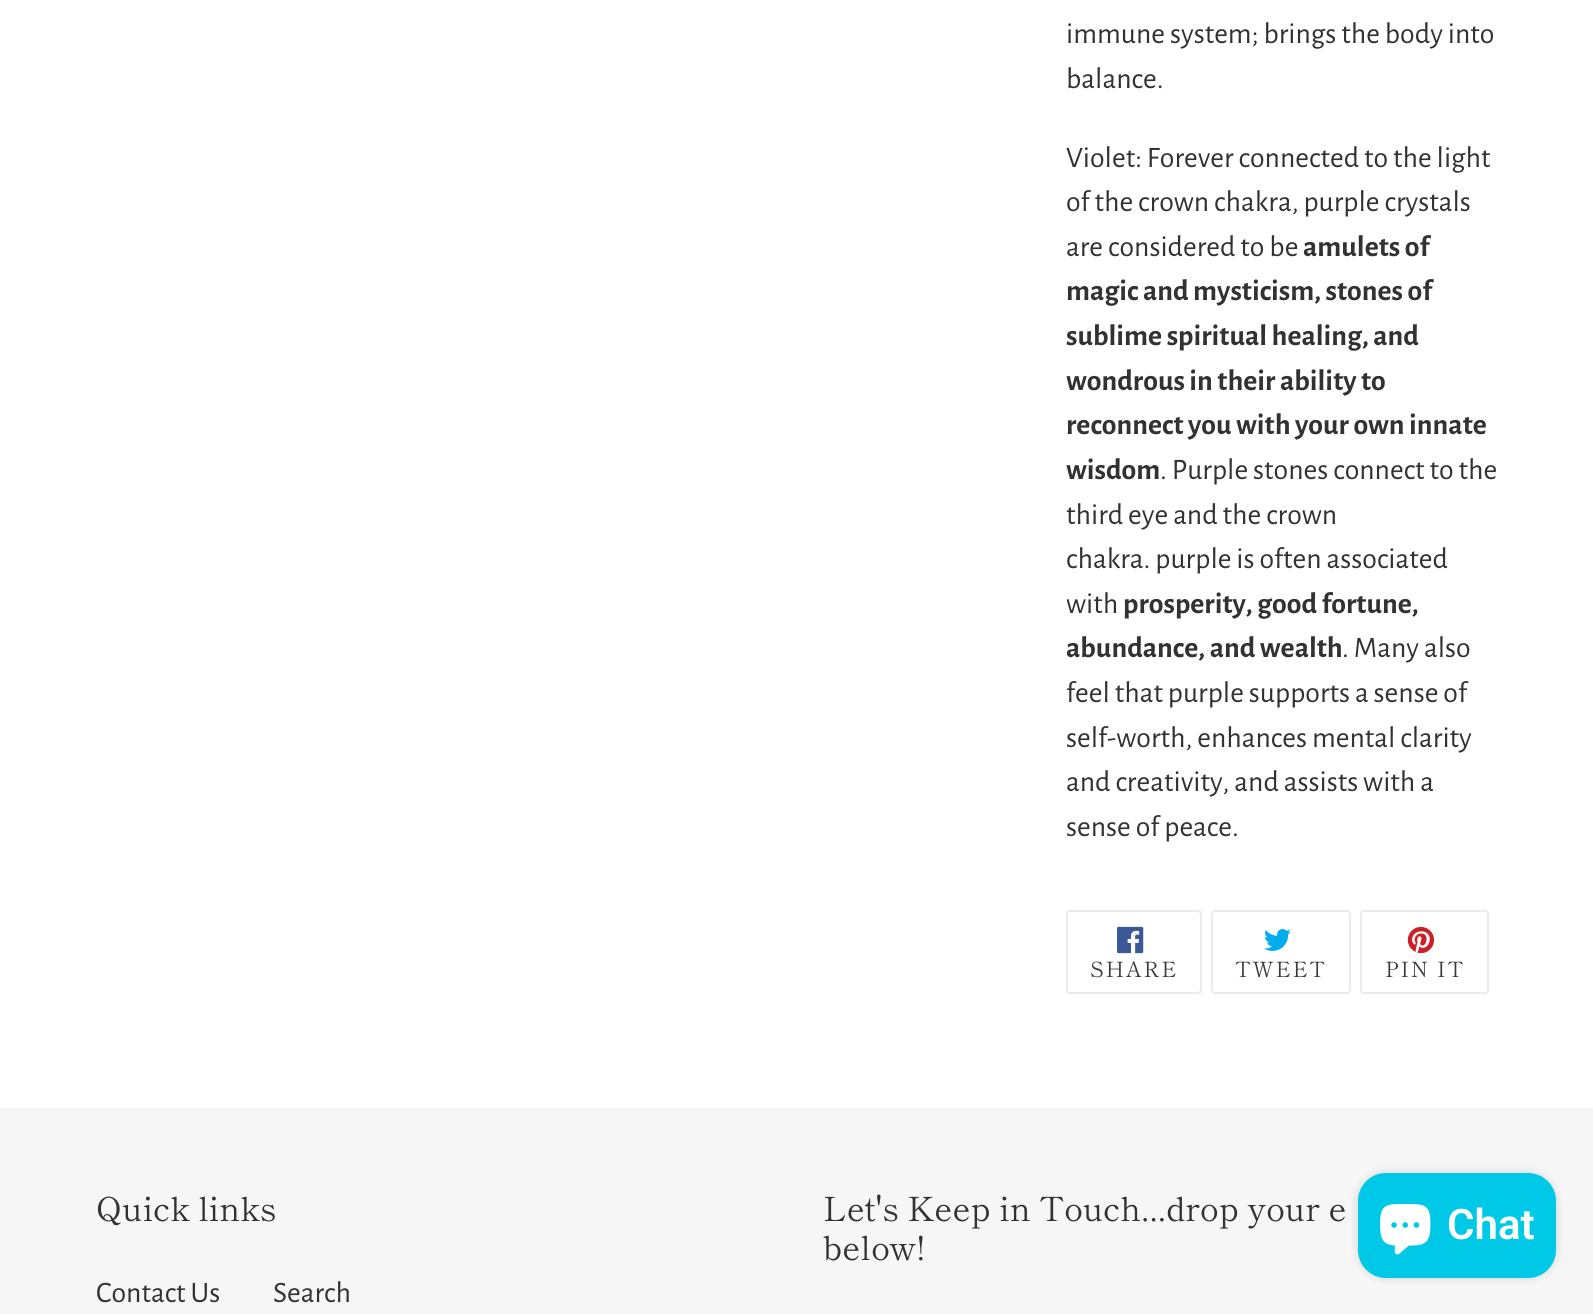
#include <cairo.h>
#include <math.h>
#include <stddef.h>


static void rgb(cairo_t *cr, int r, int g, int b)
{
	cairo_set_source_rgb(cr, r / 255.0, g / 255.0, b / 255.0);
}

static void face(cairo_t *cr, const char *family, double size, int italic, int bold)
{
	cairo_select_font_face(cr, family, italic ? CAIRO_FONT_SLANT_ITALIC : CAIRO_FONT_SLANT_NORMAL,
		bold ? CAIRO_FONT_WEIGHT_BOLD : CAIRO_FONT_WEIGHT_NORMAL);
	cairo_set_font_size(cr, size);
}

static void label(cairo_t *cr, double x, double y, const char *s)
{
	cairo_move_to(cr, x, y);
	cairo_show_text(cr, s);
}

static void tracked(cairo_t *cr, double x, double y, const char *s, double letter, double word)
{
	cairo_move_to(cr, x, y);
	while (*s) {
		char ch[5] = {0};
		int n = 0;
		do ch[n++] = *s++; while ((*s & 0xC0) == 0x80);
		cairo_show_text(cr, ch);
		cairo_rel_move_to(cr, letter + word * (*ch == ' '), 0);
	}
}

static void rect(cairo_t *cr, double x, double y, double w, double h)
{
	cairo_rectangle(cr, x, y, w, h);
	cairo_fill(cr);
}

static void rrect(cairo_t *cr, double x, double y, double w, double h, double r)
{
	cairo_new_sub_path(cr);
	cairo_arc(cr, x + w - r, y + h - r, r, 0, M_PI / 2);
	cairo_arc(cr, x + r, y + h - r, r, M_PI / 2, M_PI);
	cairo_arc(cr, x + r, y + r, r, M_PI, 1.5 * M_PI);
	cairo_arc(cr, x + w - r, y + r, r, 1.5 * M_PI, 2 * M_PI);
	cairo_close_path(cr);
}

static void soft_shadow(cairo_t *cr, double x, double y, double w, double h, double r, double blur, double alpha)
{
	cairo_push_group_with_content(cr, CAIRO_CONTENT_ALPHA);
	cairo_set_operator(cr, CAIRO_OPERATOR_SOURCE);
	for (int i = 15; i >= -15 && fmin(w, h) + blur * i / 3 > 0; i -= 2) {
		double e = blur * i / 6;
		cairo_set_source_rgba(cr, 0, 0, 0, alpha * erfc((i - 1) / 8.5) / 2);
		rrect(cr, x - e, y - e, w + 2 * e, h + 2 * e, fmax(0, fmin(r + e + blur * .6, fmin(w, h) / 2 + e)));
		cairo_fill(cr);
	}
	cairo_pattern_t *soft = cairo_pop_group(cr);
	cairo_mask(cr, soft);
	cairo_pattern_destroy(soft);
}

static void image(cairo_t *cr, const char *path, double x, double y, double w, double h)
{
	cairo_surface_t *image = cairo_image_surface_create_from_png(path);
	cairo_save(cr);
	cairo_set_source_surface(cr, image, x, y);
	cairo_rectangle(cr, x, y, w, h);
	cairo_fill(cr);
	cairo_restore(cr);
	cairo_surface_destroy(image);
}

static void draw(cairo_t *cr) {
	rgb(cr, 255, 255, 255);
	cairo_paint(cr);
	face(cr, "Alegreya Sans", 29.75, 0, 0);
	rgb(cr, 51, 50, 50);
	label(cr, 1066, 43, "immune system; brings the body into");
	label(cr, 1066, 88, "balance.");
	label(cr, 1066, 167, "Violet: Forever connected to the light");
	label(cr, 1066, 211, "of the crown chakra, purple crystals");
	label(cr, 1066, 256, "are considered to be");
	face(cr, "Alegreya Sans", 29.75, 0, 1);
	label(cr, 1303, 256, "amulets of");
	label(cr, 1066, 300, "magic and mysticism, stones of");
	label(cr, 1066, 345, "sublime spiritual healing, and");
	label(cr, 1066, 390, "wondrous in their ability to");
	label(cr, 1066, 434, "reconnect you with your own innate");
	label(cr, 1066, 479, "wisdom");
	face(cr, "Alegreya Sans", 29.75, 0, 0);
	label(cr, 1160, 479, ". Purple stones connect to the");
	label(cr, 1066, 524, "third eye and the crown");
	label(cr, 1066, 568, "chakra. purple is often associated");
	label(cr, 1066, 613, "with");
	face(cr, "Alegreya Sans", 29.75, 0, 1);
	label(cr, 1123, 613, "prosperity, good fortune,");
	label(cr, 1066, 657, "abundance, and wealth");
	face(cr, "Alegreya Sans", 29.75, 0, 0);
	label(cr, 1342, 657, ". Many also");
	label(cr, 1066, 702, "feel that purple supports a sense of");
	label(cr, 1066, 747, "self-worth, enhances mental clarity");
	label(cr, 1066, 791, "and creativity, and assists with a");
	label(cr, 1066, 836, "sense of peace.");
	rrect(cr, 1067, 911, 134, 82, 3);
	rgb(cr, 235, 235, 235);
	cairo_stroke(cr);
	image(cr, "image0.png", 1117, 926, 27, 28);
	face(cr, "Shippori Mincho", 21, 0, 0);
	rgb(cr, 58, 58, 58);
	tracked(cr, 1090, 977, "SHARE", 1.75, 0);
	rrect(cr, 1212, 911, 138, 82, 3);
	rgb(cr, 235, 235, 235);
	cairo_stroke(cr);
	image(cr, "image1.png", 1264, 929, 27, 22);
	rgb(cr, 58, 58, 58);
	tracked(cr, 1235, 977, "TWEET", 1.75, 0);
	rrect(cr, 1361, 911, 127, 82, 3);
	rgb(cr, 235, 235, 235);
	cairo_stroke(cr);
	image(cr, "image2.png", 1407, 926, 28, 28);
	rgb(cr, 58, 58, 58);
	tracked(cr, 1385, 977, "PIN IT", 1.75, 0);
	rgb(cr, 246, 246, 246);
	rect(cr, 0, 1108, 1593, 206);
	face(cr, "Shippori Mincho", 33.25, 0, 0);
	rgb(cr, 51, 50, 50);
	label(cr, 96, 1221, "Quick links");
	face(cr, "Alegreya Sans", 29.75, 0, 0);
	label(cr, 96, 1302, "Contact Us");
	label(cr, 273, 1302, "Search");
	face(cr, "Shippori Mincho", 33.25, 0, 0);
	label(cr, 823, 1221, "Let's Keep in Touch...drop your e");
	label(cr, 823, 1260, "below!");
	rgb(cr, 0, 0, 0);
	soft_shadow(cr, 1358, 1173, 198, 105, 28, 4.5, 0.15);
	rgb(cr, 0, 201, 232);
	rrect(cr, 1358, 1173, 198, 105, 28);
	cairo_fill(cr);
	image(cr, "image3.png", 1380, 1204, 51, 51);
	face(cr, "Roboto SemiBold", 42, 0, 0);
	rgb(cr, 255, 255, 255);
	label(cr, 1447, 1239, "Chat");
}

int main(void) {
	cairo_surface_t *surface = cairo_image_surface_create(CAIRO_FORMAT_RGB24, 1593, 1314);
	cairo_t *cr = cairo_create(surface);
	cairo_font_options_t *options = cairo_font_options_create();
	cairo_font_options_set_hint_metrics(options, CAIRO_HINT_METRICS_OFF);
	cairo_font_options_set_hint_style(options, CAIRO_HINT_STYLE_NONE);
	cairo_set_font_options(cr, options);
	cairo_set_miter_limit(cr, 4);
	draw(cr);
	cairo_surface_write_to_png(surface, "render.png");
	cairo_font_options_destroy(options);
	cairo_destroy(cr);
	cairo_surface_destroy(surface);
	return 0;
}
